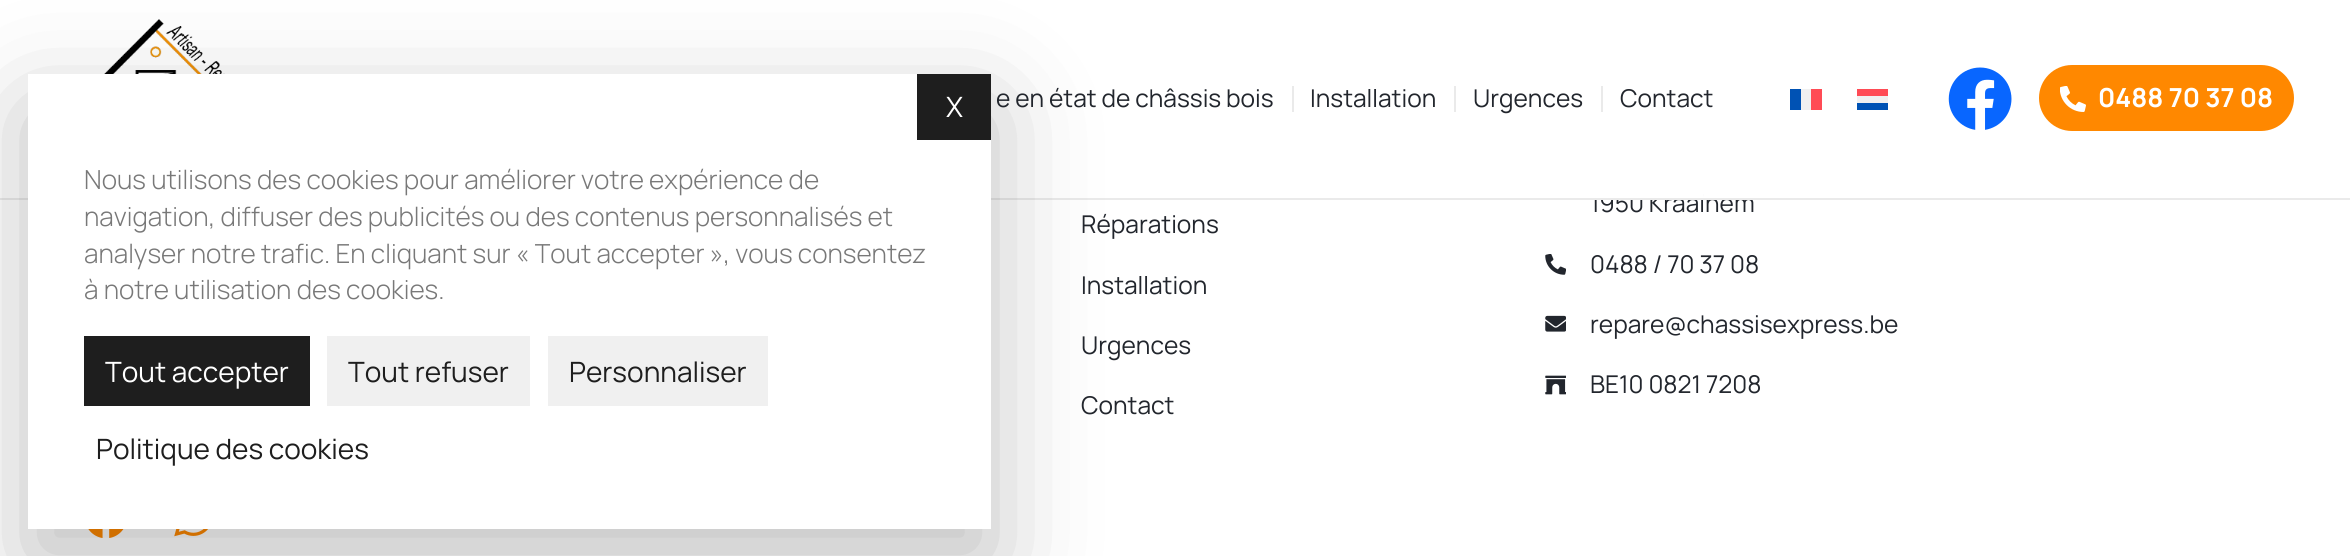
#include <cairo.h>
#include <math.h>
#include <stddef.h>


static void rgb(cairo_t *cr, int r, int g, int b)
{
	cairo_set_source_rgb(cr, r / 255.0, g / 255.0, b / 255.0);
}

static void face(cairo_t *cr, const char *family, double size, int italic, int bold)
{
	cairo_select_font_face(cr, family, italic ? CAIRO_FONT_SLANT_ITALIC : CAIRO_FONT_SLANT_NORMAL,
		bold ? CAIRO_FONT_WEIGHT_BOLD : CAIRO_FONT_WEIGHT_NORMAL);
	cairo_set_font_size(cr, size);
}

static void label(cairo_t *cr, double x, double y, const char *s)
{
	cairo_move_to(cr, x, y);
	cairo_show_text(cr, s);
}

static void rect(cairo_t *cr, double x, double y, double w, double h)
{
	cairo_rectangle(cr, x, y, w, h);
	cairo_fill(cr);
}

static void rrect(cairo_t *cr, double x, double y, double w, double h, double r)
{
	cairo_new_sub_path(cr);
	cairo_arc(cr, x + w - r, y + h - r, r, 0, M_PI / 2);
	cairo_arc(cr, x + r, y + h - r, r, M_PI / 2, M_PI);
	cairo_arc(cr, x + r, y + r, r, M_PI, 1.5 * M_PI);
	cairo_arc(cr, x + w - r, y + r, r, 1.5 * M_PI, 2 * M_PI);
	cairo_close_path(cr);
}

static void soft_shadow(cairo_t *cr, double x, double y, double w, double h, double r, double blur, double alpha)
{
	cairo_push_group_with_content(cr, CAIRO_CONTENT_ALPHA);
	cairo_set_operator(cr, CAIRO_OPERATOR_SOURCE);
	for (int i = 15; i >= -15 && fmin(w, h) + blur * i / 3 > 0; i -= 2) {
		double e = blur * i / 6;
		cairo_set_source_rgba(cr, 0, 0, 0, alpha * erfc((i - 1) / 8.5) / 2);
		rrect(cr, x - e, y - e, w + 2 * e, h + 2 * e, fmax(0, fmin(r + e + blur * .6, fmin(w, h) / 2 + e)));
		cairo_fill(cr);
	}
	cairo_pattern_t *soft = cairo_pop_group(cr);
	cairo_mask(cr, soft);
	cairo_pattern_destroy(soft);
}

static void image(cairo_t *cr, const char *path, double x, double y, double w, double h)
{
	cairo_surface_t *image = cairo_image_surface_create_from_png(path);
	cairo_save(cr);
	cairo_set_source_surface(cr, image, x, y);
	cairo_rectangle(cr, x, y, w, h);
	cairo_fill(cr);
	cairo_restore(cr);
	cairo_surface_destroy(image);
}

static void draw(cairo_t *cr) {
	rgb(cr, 255, 255, 255);
	cairo_paint(cr);
	face(cr, "Manrope", 24.5, 0, 0);
	rgb(cr, 34, 38, 45);
	label(cr, 1590, 212, "1950 Kraainem");
	rgb(cr, 234, 234, 234);
	rect(cr, 0, 198, 2350, 2);
	image(cr, "image0.png", 104, 19, 121, 55);
	image(cr, "image6.png", 88, 529, 36, 9);
	image(cr, "image7.png", 174, 529, 34, 8);
	rgb(cr, 0, 0, 0);
	soft_shadow(cr, 28, 109, 963, 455, 0, 52.5, 0.25);
	rgb(cr, 255, 255, 255);
	rect(cr, 28, 74, 963, 455);
	rgb(cr, 30, 30, 30);
	rect(cr, 917, 74, 74, 66);
	face(cr, "Manrope", 28, 0, 0);
	rgb(cr, 255, 255, 255);
	label(cr, 946, 117, "X");
	face(cr, "Manrope Light", 26.25, 0, 0);
	rgb(cr, 120, 120, 120);
	label(cr, 84, 189, "Nous utilisons des cookies pour améliorer votre expérience de");
	label(cr, 84, 226, "navigation, diffuser des publicités ou des contenus personnalisés et");
	label(cr, 84, 263, "analyser notre trafic. En cliquant sur « Tout accepter », vous consentez");
	label(cr, 84, 299, "à notre utilisation des cookies.");
	rgb(cr, 30, 30, 30);
	rect(cr, 84, 336, 226, 70);
	face(cr, "Manrope", 28, 0, 0);
	rgb(cr, 255, 255, 255);
	label(cr, 105, 382, "Tout accepter");
	rgb(cr, 240, 240, 240);
	rect(cr, 327, 336, 203, 70);
	rgb(cr, 30, 30, 30);
	label(cr, 348, 382, "Tout refuser");
	rgb(cr, 240, 240, 240);
	rect(cr, 548, 336, 220, 70);
	rgb(cr, 30, 30, 30);
	label(cr, 569, 382, "Personnaliser");
	label(cr, 96, 459, "Politique des cookies");
	rgb(cr, 255, 255, 255);
	rect(cr, 1591, 194, 112, 4);
	face(cr, "Manrope", 24.5, 0, 0);
	rgb(cr, 34, 38, 45);
	label(cr, 996, 107, "e en état de châssis bois");
	rgb(cr, 234, 234, 234);
	rect(cr, 1292, 86, 2, 26);
	rgb(cr, 34, 38, 45);
	label(cr, 1310, 107, "Installation");
	rgb(cr, 234, 234, 234);
	rect(cr, 1454, 86, 2, 26);
	rgb(cr, 34, 38, 45);
	label(cr, 1473, 107, "Urgences");
	rgb(cr, 234, 234, 234);
	rect(cr, 1601, 86, 2, 26);
	rgb(cr, 34, 38, 45);
	label(cr, 1620, 107, "Contact");
	rgb(cr, 0, 82, 180);
	rect(cr, 1790, 89, 11, 21);
	rgb(cr, 240, 240, 240);
	rect(cr, 1801, 89, 10, 21);
	rgb(cr, 255, 75, 85);
	rect(cr, 1811, 89, 11, 21);
	rect(cr, 1857, 89, 31, 7);
	rgb(cr, 240, 240, 240);
	rect(cr, 1857, 96, 31, 7);
	rgb(cr, 0, 82, 180);
	rect(cr, 1857, 103, 31, 7);
	image(cr, "image1.png", 1948, 67, 64, 63);
	rgb(cr, 255, 136, 0);
	rrect(cr, 2039, 65, 255, 66, 33);
	cairo_fill(cr);
	image(cr, "image2.png", 2060, 86, 26, 26);
	face(cr, "Manrope", 26.25, 0, 1);
	rgb(cr, 255, 255, 255);
	label(cr, 2098, 107, "0488 70 37 08");
	face(cr, "Manrope", 24.5, 0, 0);
	rgb(cr, 34, 38, 45);
	label(cr, 1081, 233, "Réparations");
	label(cr, 1081, 294, "Installation");
	label(cr, 1081, 354, "Urgences");
	label(cr, 1081, 414, "Contact");
	image(cr, "image3.png", 1545, 254, 21, 21);
	label(cr, 1590, 273, "0488 / 70 37 08");
	image(cr, "image4.png", 1545, 315, 21, 17);
	label(cr, 1590, 333, "repare@chassisexpress.be");
	image(cr, "image5.png", 1545, 375, 21, 20);
	label(cr, 1590, 393, "BE10 0821 7208");
}

int main(void) {
	cairo_surface_t *surface = cairo_image_surface_create(CAIRO_FORMAT_RGB24, 2350, 556);
	cairo_t *cr = cairo_create(surface);
	cairo_font_options_t *options = cairo_font_options_create();
	cairo_font_options_set_hint_metrics(options, CAIRO_HINT_METRICS_OFF);
	cairo_font_options_set_hint_style(options, CAIRO_HINT_STYLE_NONE);
	cairo_set_font_options(cr, options);
	cairo_set_miter_limit(cr, 4);
	draw(cr);
	cairo_surface_write_to_png(surface, "render.png");
	cairo_font_options_destroy(options);
	cairo_destroy(cr);
	cairo_surface_destroy(surface);
	return 0;
}
